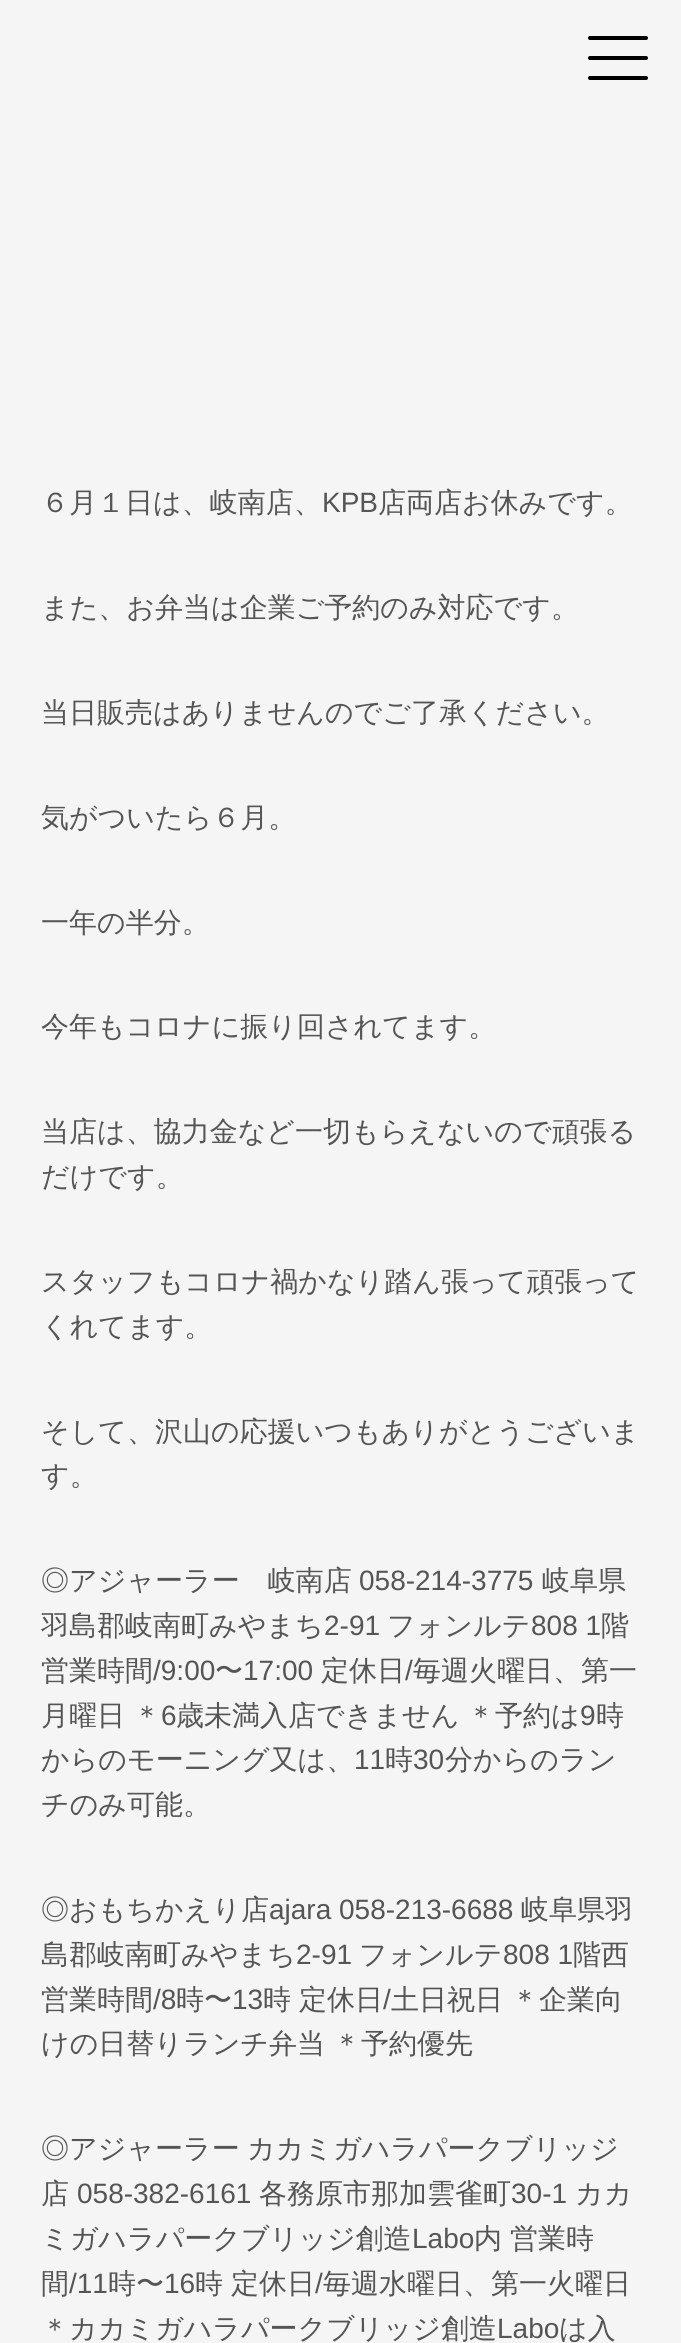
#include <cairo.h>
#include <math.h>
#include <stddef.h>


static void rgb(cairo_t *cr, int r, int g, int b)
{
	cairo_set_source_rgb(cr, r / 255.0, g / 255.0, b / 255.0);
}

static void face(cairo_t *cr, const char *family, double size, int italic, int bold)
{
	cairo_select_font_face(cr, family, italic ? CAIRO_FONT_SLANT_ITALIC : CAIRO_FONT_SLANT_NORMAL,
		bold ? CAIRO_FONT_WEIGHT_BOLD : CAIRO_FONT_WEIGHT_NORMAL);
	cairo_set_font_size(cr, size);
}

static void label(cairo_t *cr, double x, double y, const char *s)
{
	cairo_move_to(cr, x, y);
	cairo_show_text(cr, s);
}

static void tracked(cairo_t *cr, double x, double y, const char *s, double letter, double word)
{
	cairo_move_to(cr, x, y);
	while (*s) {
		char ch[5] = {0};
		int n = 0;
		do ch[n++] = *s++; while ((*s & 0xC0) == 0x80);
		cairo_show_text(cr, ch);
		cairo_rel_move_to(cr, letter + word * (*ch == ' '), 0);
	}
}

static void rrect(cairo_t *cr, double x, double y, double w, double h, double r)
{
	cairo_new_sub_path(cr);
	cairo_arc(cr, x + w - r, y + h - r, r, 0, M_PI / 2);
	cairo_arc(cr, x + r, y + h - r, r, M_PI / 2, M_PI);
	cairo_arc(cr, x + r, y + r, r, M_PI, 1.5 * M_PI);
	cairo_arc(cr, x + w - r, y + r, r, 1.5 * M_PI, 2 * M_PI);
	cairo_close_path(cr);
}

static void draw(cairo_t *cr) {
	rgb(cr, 245, 245, 245);
	cairo_paint(cr);
	rgb(cr, 0, 0, 0);
	rrect(cr, 588, 56, 60, 4, 2);
	cairo_fill(cr);
	rrect(cr, 588, 36, 60, 4, 2);
	cairo_fill(cr);
	rrect(cr, 588, 76, 60, 4, 2);
	cairo_fill(cr);
	face(cr, "WenQuanYi Zen Hei Medium", 28, 0, 0);
	rgb(cr, 85, 85, 85);
	label(cr, 41, 512, "６月１日は、岐南店、");
	face(cr, "Liberation Sans", 28, 0, 0);
	label(cr, 322, 512, "KPB");
	face(cr, "WenQuanYi Zen Hei Medium", 28, 0, 0);
	label(cr, 378, 512, "店両店お休みです。");
	label(cr, 41, 617, "また、お弁当は企業ご予約のみ対応です。");
	label(cr, 41, 722, "当日販売はありませんのでご了承ください。");
	label(cr, 41, 827, "気がついたら６月。");
	label(cr, 41, 932, "一年の半分。");
	label(cr, 41, 1036, "今年もコロナに振り回されてます。");
	label(cr, 41, 1141, "当店は、協力金など一切もらえないので頑張る");
	label(cr, 41, 1186, "だけです。");
	label(cr, 41, 1291, "スタッフもコロナ禍かなり踏ん張って頑張って");
	label(cr, 41, 1336, "くれてます。");
	label(cr, 41, 1441, "そして、沢山の応援いつもありがとうございま");
	label(cr, 41, 1485, "す。");
	label(cr, 41, 1590, "◎アジャーラー　岐南店");
	face(cr, "Liberation Sans", 28, 0, 0);
	label(cr, 359, 1590, "058-214-3775");
	face(cr, "WenQuanYi Zen Hei Medium", 28, 0, 0);
	label(cr, 542, 1590, "岐阜県");
	label(cr, 41, 1635, "羽島郡岐南町みやまち");
	face(cr, "Liberation Sans", 28, 0, 0);
	label(cr, 324, 1635, "2-91");
	face(cr, "WenQuanYi Zen Hei Medium", 28, 0, 0);
	label(cr, 387, 1635, "フォンルテ");
	face(cr, "Liberation Sans", 28, 0, 0);
	label(cr, 531, 1635, "808 1");
	face(cr, "WenQuanYi Zen Hei Medium", 28, 0, 0);
	label(cr, 601, 1635, "階");
	label(cr, 41, 1680, "営業時間");
	face(cr, "Liberation Sans", 28, 0, 0);
	label(cr, 153, 1680, "/9:00");
	face(cr, "WenQuanYi Zen Hei Medium", 28, 0, 0);
	label(cr, 215, 1680, "〜");
	face(cr, "Liberation Sans", 28, 0, 0);
	label(cr, 243, 1680, "17:00");
	face(cr, "WenQuanYi Zen Hei Medium", 28, 0, 0);
	label(cr, 321, 1680, "定休日");
	face(cr, "Liberation Sans", 28, 0, 0);
	label(cr, 405, 1680, "/");
	face(cr, "WenQuanYi Zen Hei Medium", 28, 0, 0);
	label(cr, 413, 1680, "毎週火曜日、第一");
	label(cr, 41, 1725, "月曜日");
	label(cr, 133, 1725, "＊");
	face(cr, "Liberation Sans", 28, 0, 0);
	label(cr, 161, 1725, "6");
	face(cr, "WenQuanYi Zen Hei Medium", 28, 0, 0);
	label(cr, 176, 1725, "歳未満入店できません");
	label(cr, 467, 1725, "＊予約は");
	face(cr, "Liberation Sans", 28, 0, 0);
	label(cr, 580, 1725, "9");
	face(cr, "WenQuanYi Zen Hei Medium", 28, 0, 0);
	label(cr, 596, 1725, "時");
	label(cr, 41, 1769, "からのモーニング又は、");
	face(cr, "Liberation Sans", 28, 0, 0);
	label(cr, 354, 1769, "11");
	face(cr, "WenQuanYi Zen Hei Medium", 28, 0, 0);
	label(cr, 385, 1769, "時");
	face(cr, "Liberation Sans", 28, 0, 0);
	label(cr, 413, 1769, "30");
	face(cr, "WenQuanYi Zen Hei Medium", 28, 0, 0);
	label(cr, 445, 1769, "分からのラン");
	label(cr, 41, 1814, "チのみ可能。");
	label(cr, 41, 1919, "◎おもちかえり店");
	face(cr, "Liberation Sans", 28, 0, 0);
	label(cr, 269, 1919, "ajara 058-213-6688");
	face(cr, "WenQuanYi Zen Hei Medium", 28, 0, 0);
	label(cr, 521, 1919, "岐阜県羽");
	label(cr, 41, 1964, "島郡岐南町みやまち");
	face(cr, "Liberation Sans", 28, 0, 0);
	label(cr, 296, 1964, "2-91");
	face(cr, "WenQuanYi Zen Hei Medium", 28, 0, 0);
	label(cr, 359, 1964, "フォンルテ");
	face(cr, "Liberation Sans", 28, 0, 0);
	label(cr, 503, 1964, "808 1");
	face(cr, "WenQuanYi Zen Hei Medium", 28, 0, 0);
	label(cr, 573, 1964, "階西");
	label(cr, 41, 2009, "営業時間");
	face(cr, "Liberation Sans", 28, 0, 0);
	label(cr, 153, 2009, "/8");
	face(cr, "WenQuanYi Zen Hei Medium", 28, 0, 0);
	label(cr, 176, 2009, "時〜");
	face(cr, "Liberation Sans", 28, 0, 0);
	label(cr, 232, 2009, "13");
	face(cr, "WenQuanYi Zen Hei Medium", 28, 0, 0);
	label(cr, 263, 2009, "時");
	label(cr, 299, 2009, "定休日");
	face(cr, "Liberation Sans", 28, 0, 0);
	label(cr, 383, 2009, "/");
	face(cr, "WenQuanYi Zen Hei Medium", 28, 0, 0);
	label(cr, 391, 2009, "土日祝日");
	label(cr, 511, 2009, "＊企業向");
	label(cr, 41, 2053, "けの日替りランチ弁当");
	label(cr, 333, 2053, "＊予約優先");
	tracked(cr, 41, 2158, "◎アジャーラー カカミガハラパークブリッジ", 0, -1);
	label(cr, 41, 2203, "店");
	face(cr, "Liberation Sans", 28, 0, 0);
	label(cr, 77, 2203, "058-382-6161");
	face(cr, "WenQuanYi Zen Hei Medium", 28, 0, 0);
	label(cr, 259, 2203, "各務原市那加雲雀町");
	face(cr, "Liberation Sans", 28, 0, 0);
	label(cr, 511, 2203, "30-1");
	face(cr, "WenQuanYi Zen Hei Medium", 28, 0, 0);
	label(cr, 575, 2203, "カカ");
	label(cr, 41, 2248, "ミガハラパークブリッジ創造");
	face(cr, "Liberation Sans", 28, 0, 0);
	label(cr, 412, 2248, "Labo");
	face(cr, "WenQuanYi Zen Hei Medium", 28, 0, 0);
	label(cr, 474, 2248, "内");
	label(cr, 510, 2248, "営業時");
	label(cr, 41, 2293, "間");
	face(cr, "Liberation Sans", 28, 0, 0);
	label(cr, 69, 2293, "/11");
	face(cr, "WenQuanYi Zen Hei Medium", 28, 0, 0);
	label(cr, 108, 2293, "時〜");
	face(cr, "Liberation Sans", 28, 0, 0);
	label(cr, 164, 2293, "16");
	face(cr, "WenQuanYi Zen Hei Medium", 28, 0, 0);
	label(cr, 195, 2293, "時");
	label(cr, 231, 2293, "定休日");
	face(cr, "Liberation Sans", 28, 0, 0);
	label(cr, 315, 2293, "/");
	face(cr, "WenQuanYi Zen Hei Medium", 28, 0, 0);
	label(cr, 323, 2293, "毎週水曜日、第一火曜日");
	label(cr, 41, 2338, "＊カカミガハラパークブリッジ創造");
	face(cr, "Liberation Sans", 28, 0, 0);
	label(cr, 497, 2338, "Labo");
	face(cr, "WenQuanYi Zen Hei Medium", 28, 0, 0);
	label(cr, 559, 2338, "は入");
}

int main(void) {
	cairo_surface_t *surface = cairo_image_surface_create(CAIRO_FORMAT_RGB24, 681, 2343);
	cairo_t *cr = cairo_create(surface);
	cairo_font_options_t *options = cairo_font_options_create();
	cairo_font_options_set_hint_metrics(options, CAIRO_HINT_METRICS_OFF);
	cairo_font_options_set_hint_style(options, CAIRO_HINT_STYLE_NONE);
	cairo_set_font_options(cr, options);
	cairo_set_miter_limit(cr, 4);
	draw(cr);
	cairo_surface_write_to_png(surface, "render.png");
	cairo_font_options_destroy(options);
	cairo_destroy(cr);
	cairo_surface_destroy(surface);
	return 0;
}
